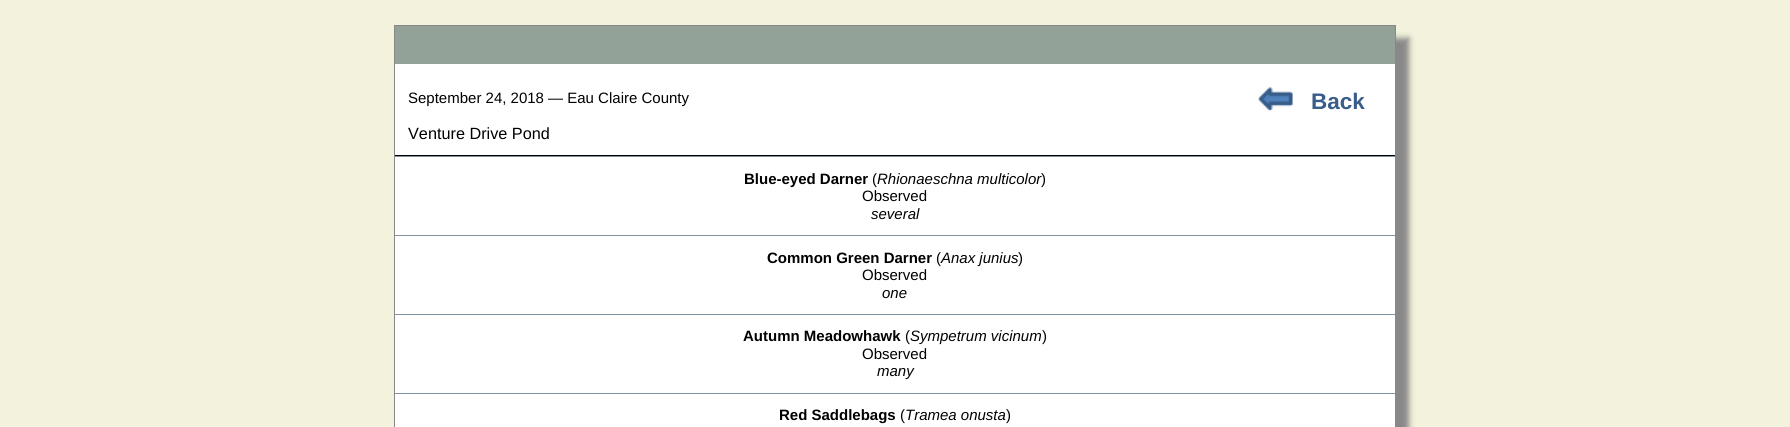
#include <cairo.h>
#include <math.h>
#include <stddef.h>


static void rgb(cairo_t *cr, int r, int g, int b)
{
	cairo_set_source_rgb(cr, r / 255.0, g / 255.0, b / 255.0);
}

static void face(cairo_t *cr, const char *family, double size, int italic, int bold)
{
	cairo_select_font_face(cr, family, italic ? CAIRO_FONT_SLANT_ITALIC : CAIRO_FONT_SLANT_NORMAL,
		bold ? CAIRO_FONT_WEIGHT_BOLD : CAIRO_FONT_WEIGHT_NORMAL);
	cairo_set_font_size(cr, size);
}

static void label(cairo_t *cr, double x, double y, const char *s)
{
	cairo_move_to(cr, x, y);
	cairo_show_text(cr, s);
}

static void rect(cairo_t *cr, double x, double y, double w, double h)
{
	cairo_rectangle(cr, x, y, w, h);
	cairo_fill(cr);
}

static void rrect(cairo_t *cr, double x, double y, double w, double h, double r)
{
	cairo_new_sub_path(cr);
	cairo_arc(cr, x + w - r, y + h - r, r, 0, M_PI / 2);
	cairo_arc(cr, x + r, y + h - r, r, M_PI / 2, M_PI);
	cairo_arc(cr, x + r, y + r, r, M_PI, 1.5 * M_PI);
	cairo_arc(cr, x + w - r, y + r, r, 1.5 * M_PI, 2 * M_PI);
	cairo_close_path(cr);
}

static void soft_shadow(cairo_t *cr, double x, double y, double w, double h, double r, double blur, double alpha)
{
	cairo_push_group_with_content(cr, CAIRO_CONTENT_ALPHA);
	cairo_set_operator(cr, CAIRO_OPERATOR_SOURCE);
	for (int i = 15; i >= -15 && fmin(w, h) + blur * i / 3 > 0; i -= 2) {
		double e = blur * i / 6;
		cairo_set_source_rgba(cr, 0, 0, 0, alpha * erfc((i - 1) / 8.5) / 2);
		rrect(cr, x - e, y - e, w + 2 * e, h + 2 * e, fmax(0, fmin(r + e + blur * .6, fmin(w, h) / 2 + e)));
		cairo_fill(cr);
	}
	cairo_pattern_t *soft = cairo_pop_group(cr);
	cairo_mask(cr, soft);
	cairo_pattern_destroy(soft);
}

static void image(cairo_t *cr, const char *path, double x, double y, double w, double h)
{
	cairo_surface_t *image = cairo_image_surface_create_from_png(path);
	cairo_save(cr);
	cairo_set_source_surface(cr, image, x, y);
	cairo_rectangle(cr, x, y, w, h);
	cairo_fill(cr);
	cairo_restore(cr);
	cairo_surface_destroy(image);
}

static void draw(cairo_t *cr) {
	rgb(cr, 243, 242, 220);
	cairo_paint(cr);
	rgb(cr, 136, 136, 136);
	soft_shadow(cr, 406, 38, 1003, 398, 0, 3, 1);
	rgb(cr, 255, 255, 255);
	rect(cr, 395, 64, 1000, 363);
	cairo_rectangle(cr, 394.5, 25.5, 1001, 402);
	rgb(cr, 136, 136, 136);
	cairo_set_line_width(cr, 1);
	cairo_stroke(cr);
	rgb(cr, 147, 162, 153);
	rect(cr, 395, 26, 1000, 38);
	face(cr, "Liberation Sans", 15, 0, 0);
	rgb(cr, 0, 0, 0);
	label(cr, 408, 103, "September 24, 2018 — Eau Claire County");
	face(cr, "Liberation Sans", 16.25, 0, 0);
	label(cr, 408, 139, "Venture Drive Pond");
	image(cr, "image0.png", 1258, 87, 35, 24);
	face(cr, "Liberation Sans", 22.5, 0, 1);
	rgb(cr, 56, 93, 138);
	label(cr, 1311, 109, "Back");
	rgb(cr, 0, 0, 0);
	rect(cr, 395, 155, 1000, 1);
	rgb(cr, 123, 147, 163);
	rect(cr, 395, 156, 1000, 1);
	face(cr, "Liberation Sans", 15, 0, 1);
	rgb(cr, 0, 0, 0);
	label(cr, 744, 184, "Blue-eyed Darner");
	face(cr, "Liberation Sans", 15, 0, 0);
	label(cr, 872, 184, "(");
	face(cr, "Liberation Sans", 15, 1, 0);
	label(cr, 877, 184, "Rhionaeschna multicolor");
	face(cr, "Liberation Sans", 15, 0, 0);
	label(cr, 1041, 184, ")");
	label(cr, 862, 201, "Observed");
	face(cr, "Liberation Sans", 15, 1, 0);
	label(cr, 871, 219, "several");
	rgb(cr, 123, 147, 163);
	rect(cr, 395, 235, 1000, 1);
	face(cr, "Liberation Sans", 15, 0, 1);
	rgb(cr, 0, 0, 0);
	label(cr, 767, 263, "Common Green Darner");
	face(cr, "Liberation Sans", 15, 0, 0);
	label(cr, 936, 263, "(");
	face(cr, "Liberation Sans", 15, 1, 0);
	label(cr, 941, 263, "Anax junius");
	face(cr, "Liberation Sans", 15, 0, 0);
	label(cr, 1018, 263, ")");
	label(cr, 862, 280, "Observed");
	face(cr, "Liberation Sans", 15, 1, 0);
	label(cr, 882, 298, "one");
	rgb(cr, 123, 147, 163);
	rect(cr, 395, 314, 1000, 1);
	face(cr, "Liberation Sans", 15, 0, 1);
	rgb(cr, 0, 0, 0);
	label(cr, 743, 341, "Autumn Meadowhawk");
	face(cr, "Liberation Sans", 15, 0, 0);
	label(cr, 905, 341, "(");
	face(cr, "Liberation Sans", 15, 1, 0);
	label(cr, 910, 341, "Sympetrum vicinum");
	face(cr, "Liberation Sans", 15, 0, 0);
	label(cr, 1042, 341, ")");
	label(cr, 862, 359, "Observed");
	face(cr, "Liberation Sans", 15, 1, 0);
	label(cr, 877, 376, "many");
	rgb(cr, 123, 147, 163);
	rect(cr, 395, 393, 1000, 1);
	face(cr, "Liberation Sans", 15, 0, 1);
	rgb(cr, 0, 0, 0);
	label(cr, 779, 420, "Red Saddlebags");
	face(cr, "Liberation Sans", 15, 0, 0);
	label(cr, 900, 420, "(");
	face(cr, "Liberation Sans", 15, 1, 0);
	label(cr, 905, 420, "Tramea onusta");
	face(cr, "Liberation Sans", 15, 0, 0);
	label(cr, 1006, 420, ")");
}

int main(void) {
	cairo_surface_t *surface = cairo_image_surface_create(CAIRO_FORMAT_RGB24, 1790, 427);
	cairo_t *cr = cairo_create(surface);
	cairo_font_options_t *options = cairo_font_options_create();
	cairo_font_options_set_hint_metrics(options, CAIRO_HINT_METRICS_OFF);
	cairo_font_options_set_hint_style(options, CAIRO_HINT_STYLE_NONE);
	cairo_set_font_options(cr, options);
	cairo_set_miter_limit(cr, 4);
	draw(cr);
	cairo_surface_write_to_png(surface, "render.png");
	cairo_font_options_destroy(options);
	cairo_destroy(cr);
	cairo_surface_destroy(surface);
	return 0;
}
